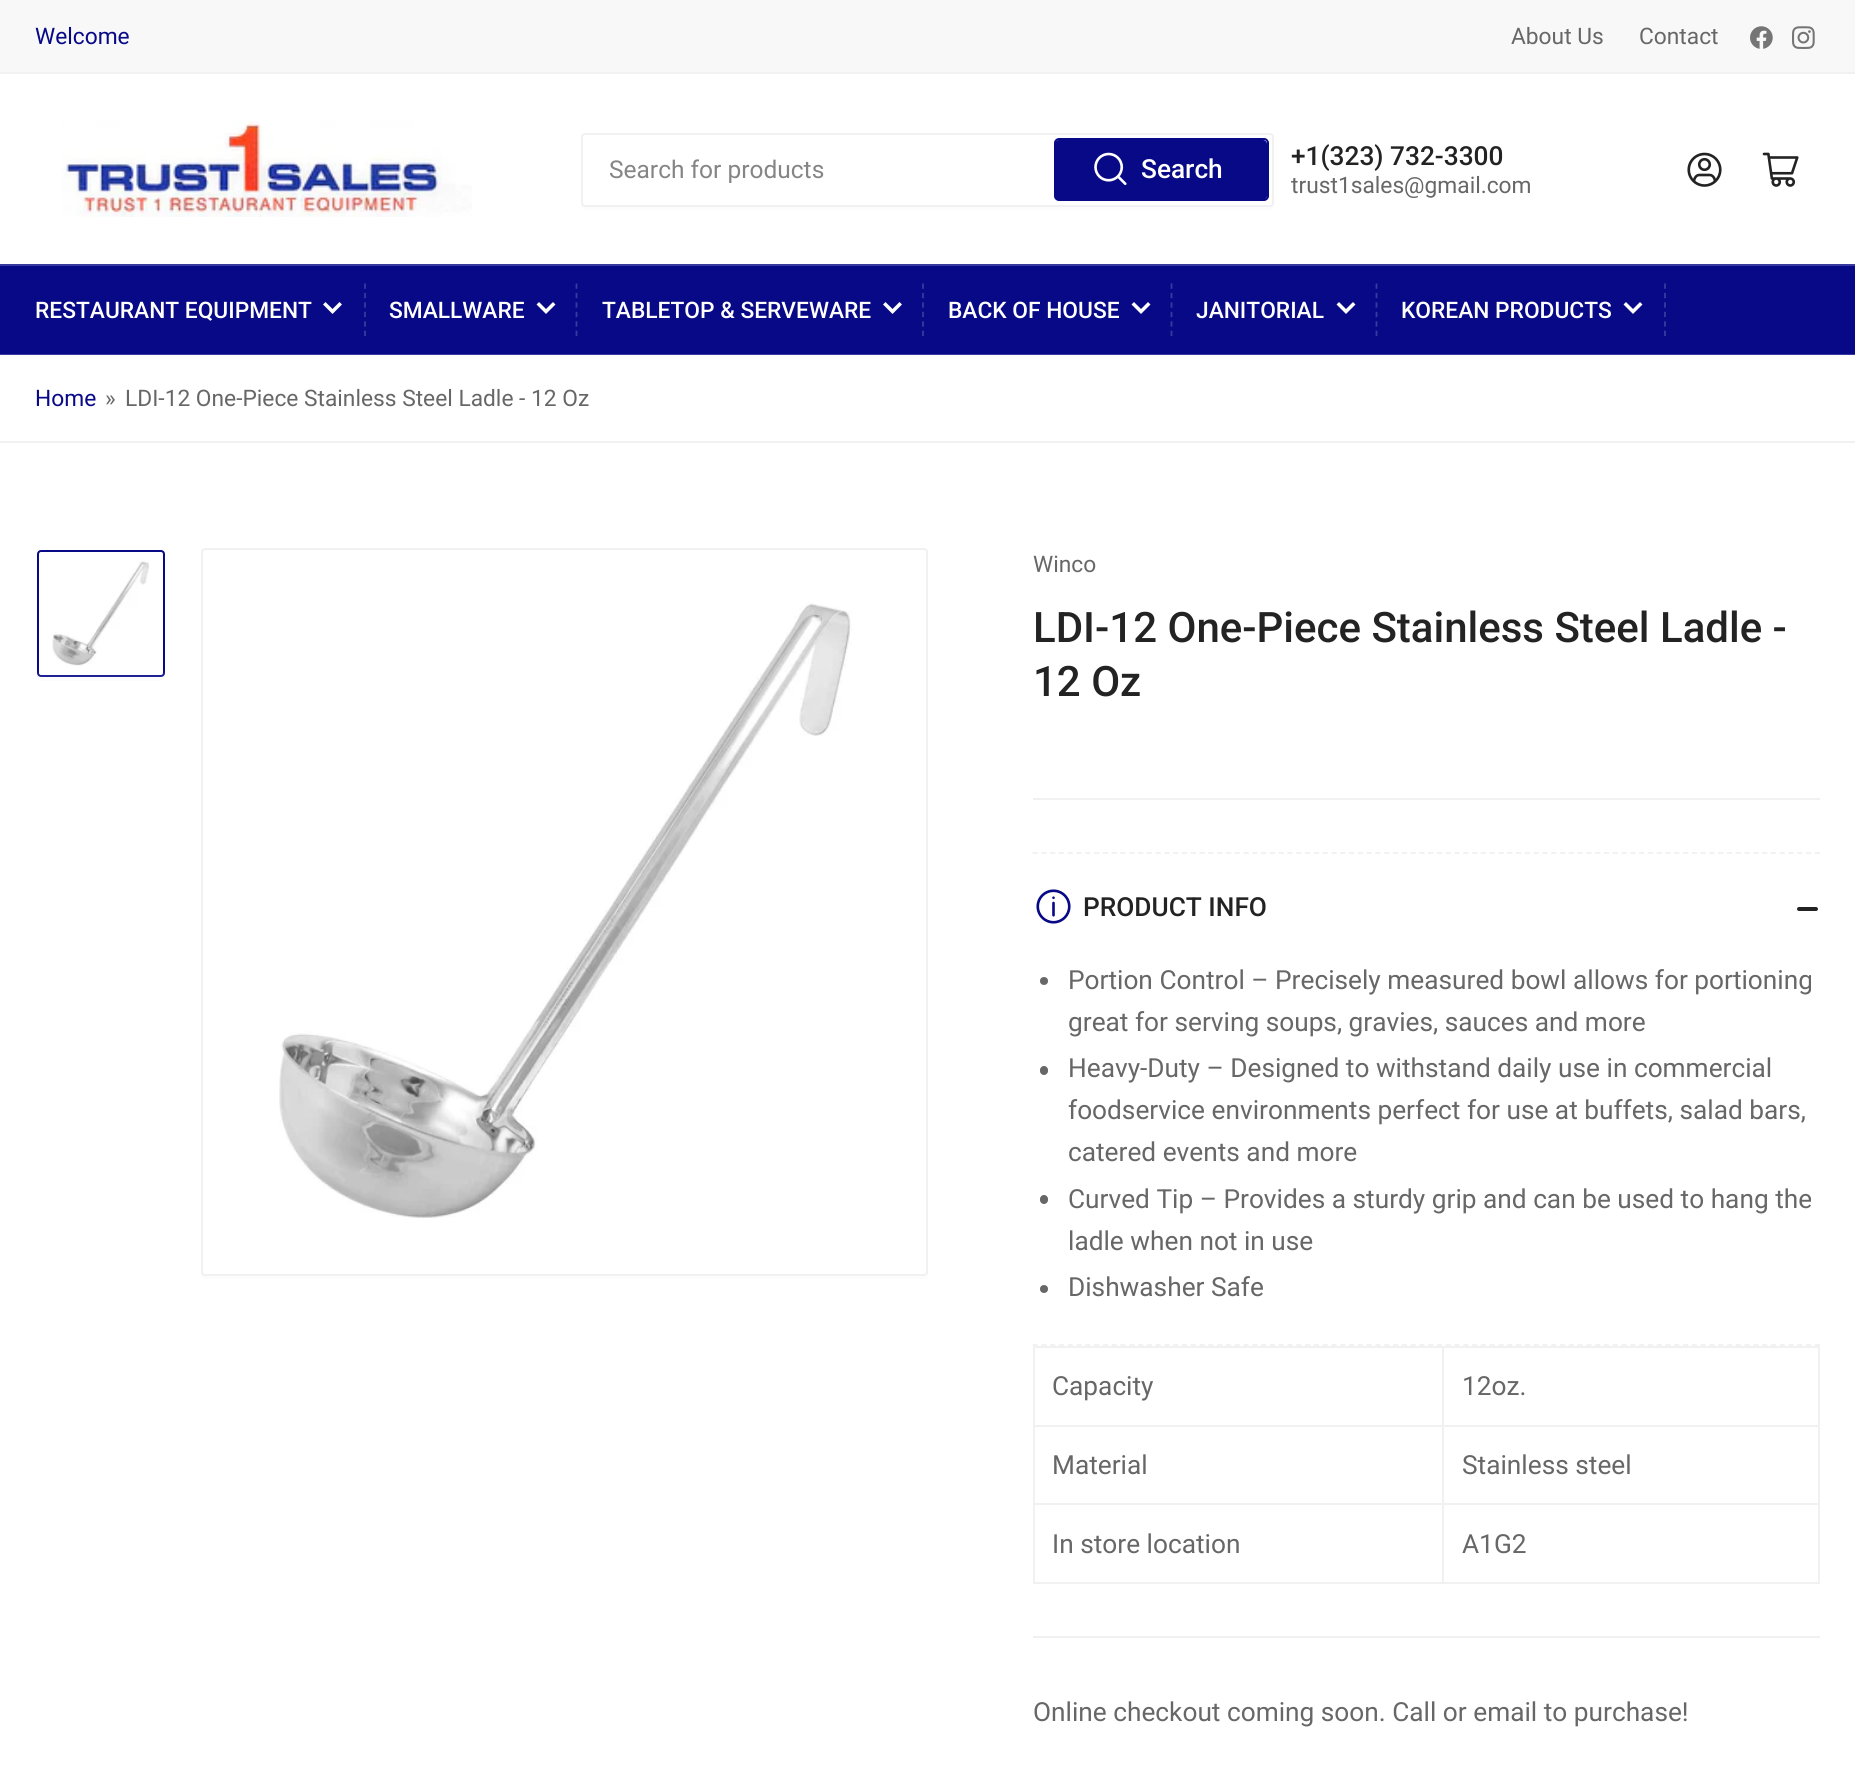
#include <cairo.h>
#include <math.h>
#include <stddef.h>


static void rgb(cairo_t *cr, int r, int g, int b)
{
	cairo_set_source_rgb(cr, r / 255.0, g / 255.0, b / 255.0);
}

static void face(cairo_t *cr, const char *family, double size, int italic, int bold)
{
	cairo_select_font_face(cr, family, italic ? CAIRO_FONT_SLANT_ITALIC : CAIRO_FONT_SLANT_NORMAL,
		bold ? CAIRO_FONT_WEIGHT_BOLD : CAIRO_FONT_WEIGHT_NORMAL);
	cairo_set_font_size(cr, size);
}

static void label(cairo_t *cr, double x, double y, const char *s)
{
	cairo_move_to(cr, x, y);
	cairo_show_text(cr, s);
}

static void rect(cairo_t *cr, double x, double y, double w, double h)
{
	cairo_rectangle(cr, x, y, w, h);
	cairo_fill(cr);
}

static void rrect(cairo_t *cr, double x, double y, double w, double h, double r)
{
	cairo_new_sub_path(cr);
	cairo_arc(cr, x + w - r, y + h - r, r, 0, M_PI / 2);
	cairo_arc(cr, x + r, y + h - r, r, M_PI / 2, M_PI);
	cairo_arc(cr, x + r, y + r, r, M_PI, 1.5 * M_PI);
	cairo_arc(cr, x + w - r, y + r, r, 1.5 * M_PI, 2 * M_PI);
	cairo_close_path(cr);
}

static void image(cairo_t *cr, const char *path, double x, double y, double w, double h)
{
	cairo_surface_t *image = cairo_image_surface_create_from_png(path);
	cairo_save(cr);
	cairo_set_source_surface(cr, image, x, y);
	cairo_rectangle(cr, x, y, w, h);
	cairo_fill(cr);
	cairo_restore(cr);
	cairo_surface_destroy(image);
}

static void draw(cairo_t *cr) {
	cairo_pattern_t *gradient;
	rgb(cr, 255, 255, 255);
	cairo_paint(cr);
	rgb(cr, 248, 248, 248);
	rect(cr, 0, 0, 1855, 72);
	rgb(cr, 241, 241, 241);
	rect(cr, 0, 72, 1855, 2);
	face(cr, "Roboto", 22.75, 0, 0);
	rgb(cr, 8, 9, 135);
	label(cr, 35, 44, "Welcome");
	rgb(cr, 103, 103, 103);
	label(cr, 1511, 44, "About Us");
	label(cr, 1639, 44, "Contact");
	image(cr, "image0.png", 1750, 26, 23, 23);
	image(cr, "image1.png", 1792, 26, 23, 23);
	image(cr, "image2.png", 62, 121, 410, 96);
	rgb(cr, 252, 252, 252);
	cairo_new_path(cr);
	cairo_move_to(cr, 581, 203);
	cairo_line_to(cr, 581, 206);
	cairo_curve_to(cr, 581, 208, 583, 210, 585, 210);
	cairo_line_to(cr, 1270, 210);
	cairo_curve_to(cr, 1272, 210, 1274, 208, 1274, 206);
	cairo_line_to(cr, 1274, 203);
	cairo_curve_to(cr, 1274, 205, 1272, 206, 1270, 206);
	cairo_line_to(cr, 584, 206);
	cairo_curve_to(cr, 583, 206, 581, 205, 581, 203);
	cairo_close_path(cr);
	cairo_fill(cr);
	rgb(cr, 255, 255, 255);
	rrect(cr, 582, 134, 691, 72, 3);
	cairo_fill_preserve(cr);
	rgb(cr, 241, 241, 241);
	cairo_stroke(cr);
	face(cr, "Roboto", 24.5, 0, 0);
	rgb(cr, 133, 133, 133);
	label(cr, 609, 178, "Search for products");
	rrect(cr, 1055, 139, 213, 61, 4);
	rgb(cr, 8, 9, 135);
	cairo_stroke(cr);
	rrect(cr, 1055, 140, 212, 60, 4);
	cairo_fill(cr);
	image(cr, "image3.png", 1094, 152, 33, 33);
	face(cr, "Roboto Medium", 26.25, 0, 0);
	rgb(cr, 255, 255, 255);
	label(cr, 1141, 178, "Search");
	rgb(cr, 35, 35, 35);
	label(cr, 1291, 165, "+1(323) 732-3300");
	face(cr, "Roboto", 22.75, 0, 0);
	rgb(cr, 103, 103, 103);
	label(cr, 1291, 193, "trust1sales@gmail.com");
	image(cr, "image4.png", 1687, 152, 35, 35);
	image(cr, "image5.png", 1762, 152, 37, 35);
	rgb(cr, 8, 9, 135);
	rect(cr, 0, 266, 1855, 88);
	rgb(cr, 57, 58, 159);
	rect(cr, 0, 354, 1855, 1);
	rect(cr, 0, 264, 1855, 2);
	face(cr, "Roboto Medium", 22.75, 0, 0);
	rgb(cr, 255, 255, 255);
	label(cr, 35, 318, "RESTAURANT EQUIPMENT");
	cairo_new_path(cr);
	cairo_move_to(cr, 339.5, 304.5);
	cairo_line_to(cr, 332.5, 311.5);
	cairo_line_to(cr, 325.5, 304.5);
	cairo_set_line_width(cr, 3.5);
	cairo_set_line_cap(cr, CAIRO_LINE_CAP_SQUARE);
	cairo_stroke(cr);
	cairo_new_path(cr);
	cairo_move_to(cr, 365, 283.5);
	cairo_line_to(cr, 365, 336);
	rgb(cr, 57, 58, 159);
	cairo_set_line_width(cr, 1.8);
	cairo_set_line_cap(cr, CAIRO_LINE_CAP_BUTT);
	cairo_set_dash(cr, (double[]){5.25, 4.2}, 2, 0);
	cairo_stroke(cr);
	rgb(cr, 255, 255, 255);
	label(cr, 389, 318, "SMALLWARE");
	cairo_new_path(cr);
	cairo_move_to(cr, 553, 304.5);
	cairo_line_to(cr, 546, 311.5);
	cairo_line_to(cr, 539, 304.5);
	cairo_set_line_width(cr, 3.5);
	cairo_set_line_cap(cr, CAIRO_LINE_CAP_SQUARE);
	cairo_set_dash(cr, NULL, 0, 0);
	cairo_stroke(cr);
	cairo_new_path(cr);
	cairo_move_to(cr, 576.5, 283.5);
	cairo_line_to(cr, 576.5, 336);
	rgb(cr, 57, 58, 159);
	cairo_set_line_width(cr, 1.8);
	cairo_set_line_cap(cr, CAIRO_LINE_CAP_BUTT);
	cairo_set_dash(cr, (double[]){5.25, 4.2}, 2, 0);
	cairo_stroke(cr);
	rgb(cr, 255, 255, 255);
	label(cr, 602, 318, "TABLETOP & SERVEWARE");
	cairo_new_path(cr);
	cairo_move_to(cr, 899.5, 304.5);
	cairo_line_to(cr, 892.5, 311.5);
	cairo_line_to(cr, 885.5, 304.5);
	cairo_set_line_width(cr, 3.5);
	cairo_set_line_cap(cr, CAIRO_LINE_CAP_SQUARE);
	cairo_set_dash(cr, NULL, 0, 0);
	cairo_stroke(cr);
	cairo_new_path(cr);
	cairo_move_to(cr, 923, 283.5);
	cairo_line_to(cr, 923, 336);
	rgb(cr, 57, 58, 159);
	cairo_set_line_width(cr, 1.8);
	cairo_set_line_cap(cr, CAIRO_LINE_CAP_BUTT);
	cairo_set_dash(cr, (double[]){5.25, 4.2}, 2, 0);
	cairo_stroke(cr);
	rgb(cr, 255, 255, 255);
	label(cr, 948, 318, "BACK OF HOUSE");
	cairo_new_path(cr);
	cairo_move_to(cr, 1148, 304.5);
	cairo_line_to(cr, 1141, 311.5);
	cairo_line_to(cr, 1134, 304.5);
	cairo_set_line_width(cr, 3.5);
	cairo_set_line_cap(cr, CAIRO_LINE_CAP_SQUARE);
	cairo_set_dash(cr, NULL, 0, 0);
	cairo_stroke(cr);
	cairo_new_path(cr);
	cairo_move_to(cr, 1171.5, 283.5);
	cairo_line_to(cr, 1171.5, 336);
	rgb(cr, 57, 58, 159);
	cairo_set_line_width(cr, 1.8);
	cairo_set_line_cap(cr, CAIRO_LINE_CAP_BUTT);
	cairo_set_dash(cr, (double[]){5.25, 4.2}, 2, 0);
	cairo_stroke(cr);
	rgb(cr, 255, 255, 255);
	label(cr, 1196, 318, "JANITORIAL");
	cairo_new_path(cr);
	cairo_move_to(cr, 1353, 304.5);
	cairo_line_to(cr, 1346, 311.5);
	cairo_line_to(cr, 1339, 304.5);
	cairo_set_line_width(cr, 3.5);
	cairo_set_line_cap(cr, CAIRO_LINE_CAP_SQUARE);
	cairo_set_dash(cr, NULL, 0, 0);
	cairo_stroke(cr);
	cairo_new_path(cr);
	cairo_move_to(cr, 1376.5, 283.5);
	cairo_line_to(cr, 1376.5, 336);
	rgb(cr, 57, 58, 159);
	cairo_set_line_width(cr, 1.8);
	cairo_set_line_cap(cr, CAIRO_LINE_CAP_BUTT);
	cairo_set_dash(cr, (double[]){5.25, 4.2}, 2, 0);
	cairo_stroke(cr);
	rgb(cr, 255, 255, 255);
	label(cr, 1401, 318, "KOREAN PRODUCTS");
	cairo_new_path(cr);
	cairo_move_to(cr, 1640, 304.5);
	cairo_line_to(cr, 1633, 311.5);
	cairo_line_to(cr, 1626, 304.5);
	cairo_set_line_width(cr, 3.5);
	cairo_set_line_cap(cr, CAIRO_LINE_CAP_SQUARE);
	cairo_set_dash(cr, NULL, 0, 0);
	cairo_stroke(cr);
	cairo_new_path(cr);
	cairo_move_to(cr, 1665, 283.5);
	cairo_line_to(cr, 1665, 336);
	rgb(cr, 57, 58, 159);
	cairo_set_line_width(cr, 1.8);
	cairo_set_line_cap(cr, CAIRO_LINE_CAP_BUTT);
	cairo_set_dash(cr, (double[]){5.25, 4.2}, 2, 0);
	cairo_stroke(cr);
	rgb(cr, 241, 241, 241);
	rect(cr, 0, 441, 1855, 2);
	face(cr, "Roboto", 22.75, 0, 0);
	rgb(cr, 8, 9, 135);
	label(cr, 35, 406, "Home");
	rgb(cr, 103, 103, 103);
	label(cr, 105, 406, "»");
	label(cr, 125, 406, "LDI-12 One-Piece Stainless Steel Ladle - 12 Oz");
	rgb(cr, 252, 252, 252);
	cairo_new_path(cr);
	cairo_move_to(cr, 37, 675);
	cairo_line_to(cr, 37, 677);
	cairo_curve_to(cr, 37, 679, 39, 681, 41, 681);
	cairo_line_to(cr, 161, 681);
	cairo_curve_to(cr, 163, 681, 165, 679, 165, 677);
	cairo_line_to(cr, 165, 557);
	cairo_line_to(cr, 164, 555);
	cairo_line_to(cr, 164, 674);
	cairo_curve_to(cr, 164, 676, 163, 677, 161, 677);
	cairo_line_to(cr, 40, 677);
	cairo_curve_to(cr, 39, 677, 38, 676, 37, 675);
	cairo_close_path(cr);
	cairo_fill(cr);
	rgb(cr, 255, 255, 255);
	rrect(cr, 38, 551, 126, 125, 3);
	cairo_fill_preserve(cr);
	rgb(cr, 8, 9, 135);
	cairo_set_line_width(cr, 2);
	cairo_set_dash(cr, NULL, 0, 0);
	cairo_stroke(cr);
	image(cr, "image6.png", 52, 558, 97, 108);
	gradient = cairo_pattern_create_linear(101, 732, 101, 670);
	cairo_pattern_add_color_stop_rgba(gradient, 0, 1, 1, 1, 1);
	cairo_pattern_add_color_stop_rgba(gradient, 1, 1, 1, 1, 0);
	cairo_set_source(cr, gradient);
	cairo_pattern_destroy(gradient);
	rect(cr, 37, 671, 128, 6);
	rgb(cr, 252, 252, 252);
	cairo_new_path(cr);
	cairo_move_to(cr, 201, 554);
	cairo_line_to(cr, 201, 1275);
	cairo_curve_to(cr, 201, 1277, 203, 1279, 205, 1279);
	cairo_line_to(cr, 924, 1279);
	cairo_curve_to(cr, 926, 1279, 928, 1277, 928, 1275);
	cairo_line_to(cr, 928, 555);
	cairo_line_to(cr, 928, 553);
	cairo_line_to(cr, 928, 1272);
	cairo_curve_to(cr, 928, 1274, 926, 1276, 924, 1276);
	cairo_line_to(cr, 205, 1276);
	cairo_curve_to(cr, 203, 1276, 201, 1274, 201, 1272);
	cairo_close_path(cr);
	cairo_fill(cr);
	rrect(cr, 202, 549, 725, 726, 3);
	rgb(cr, 241, 241, 241);
	cairo_stroke(cr);
	image(cr, "image7.png", 279, 602, 573, 616);
	rect(cr, 1033, 798, 787, 2);
	rgb(cr, 103, 103, 103);
	label(cr, 1033, 572, "Winco");
	face(cr, "Roboto Medium", 42, 0, 0);
	rgb(cr, 35, 35, 35);
	label(cr, 1033, 642, "LDI-12 One-Piece Stainless Steel Ladle -");
	label(cr, 1033, 696, "12 Oz");
	cairo_new_path(cr);
	cairo_move_to(cr, 1032.5, 853);
	cairo_line_to(cr, 1820, 853);
	rgb(cr, 241, 241, 241);
	cairo_set_line_width(cr, 1.8);
	cairo_set_dash(cr, (double[]){5.25, 3.54}, 2, 0);
	cairo_stroke(cr);
	cairo_new_path(cr);
	cairo_move_to(cr, 1032.5, 1345);
	cairo_line_to(cr, 1820, 1345);
	cairo_stroke(cr);
	image(cr, "image8.png", 1036, 889, 35, 35);
	face(cr, "Roboto Medium", 26.25, 0, 0);
	rgb(cr, 35, 35, 35);
	label(cr, 1083, 916, "PRODUCT INFO");
	rrect(cr, 1797, 907, 13, 4, 2);
	cairo_fill(cr);
	rrect(cr, 1804, 907, 14, 4, 2);
	cairo_fill(cr);
	rgb(cr, 103, 103, 103);
	cairo_arc(cr, 1044, 981, 4, 0, 2 * M_PI);
	cairo_fill(cr);
	face(cr, "Roboto", 26.25, 0, 0);
	label(cr, 1068, 989, "Portion Control – Precisely measured bowl allows for portioning");
	label(cr, 1068, 1031, "great for serving soups, gravies, sauces and more");
	rrect(cr, 1040, 1066, 8, 9, 4);
	cairo_fill(cr);
	label(cr, 1068, 1077, "Heavy-Duty – Designed to withstand daily use in commercial");
	label(cr, 1068, 1119, "foodservice environments perfect for use at buffets, salad bars,");
	label(cr, 1068, 1161, "catered events and more");
	rrect(cr, 1040, 1195, 8, 9, 4);
	cairo_fill(cr);
	label(cr, 1068, 1208, "Curved Tip – Provides a sturdy grip and can be used to hang the");
	label(cr, 1068, 1250, "ladle when not in use");
	cairo_new_path(cr);
	cairo_arc(cr, 1044, 1289, 4, 0, 2 * M_PI);
	cairo_fill(cr);
	label(cr, 1068, 1296, "Dishwasher Safe");
	rgb(cr, 241, 241, 241);
	rect(cr, 1442, 1346, 378, 2);
	rect(cr, 1442, 1425, 378, 2);
	rect(cr, 1442, 1503, 378, 2);
	rect(cr, 1818, 1503, 2, 81);
	rect(cr, 1442, 1582, 378, 2);
	rect(cr, 1442, 1503, 2, 81);
	rect(cr, 1033, 1503, 411, 2);
	rect(cr, 1442, 1425, 2, 80);
	rect(cr, 1033, 1425, 411, 2);
	rect(cr, 1442, 1346, 2, 80);
	rect(cr, 1033, 1346, 411, 2);
	rect(cr, 1033, 1582, 411, 2);
	rect(cr, 1033, 1503, 2, 81);
	rect(cr, 1033, 1425, 2, 80);
	rect(cr, 1033, 1346, 2, 80);
	rgb(cr, 103, 103, 103);
	label(cr, 1052, 1395, "Capacity");
	rgb(cr, 241, 241, 241);
	rect(cr, 1818, 1425, 2, 80);
	rect(cr, 1818, 1346, 2, 80);
	rgb(cr, 103, 103, 103);
	label(cr, 1462, 1395, "12oz.");
	label(cr, 1052, 1474, "Material");
	label(cr, 1462, 1474, "Stainless steel");
	label(cr, 1052, 1553, "In store location");
	label(cr, 1462, 1553, "A1G2");
	rgb(cr, 241, 241, 241);
	rect(cr, 1033, 1636, 787, 2);
	rgb(cr, 103, 103, 103);
	label(cr, 1033, 1721, "Online checkout coming soon. Call or email to purchase!");
}

int main(void) {
	cairo_surface_t *surface = cairo_image_surface_create(CAIRO_FORMAT_RGB24, 1855, 1767);
	cairo_t *cr = cairo_create(surface);
	cairo_font_options_t *options = cairo_font_options_create();
	cairo_font_options_set_hint_metrics(options, CAIRO_HINT_METRICS_OFF);
	cairo_font_options_set_hint_style(options, CAIRO_HINT_STYLE_NONE);
	cairo_set_font_options(cr, options);
	cairo_set_miter_limit(cr, 4);
	draw(cr);
	cairo_surface_write_to_png(surface, "render.png");
	cairo_font_options_destroy(options);
	cairo_destroy(cr);
	cairo_surface_destroy(surface);
	return 0;
}
